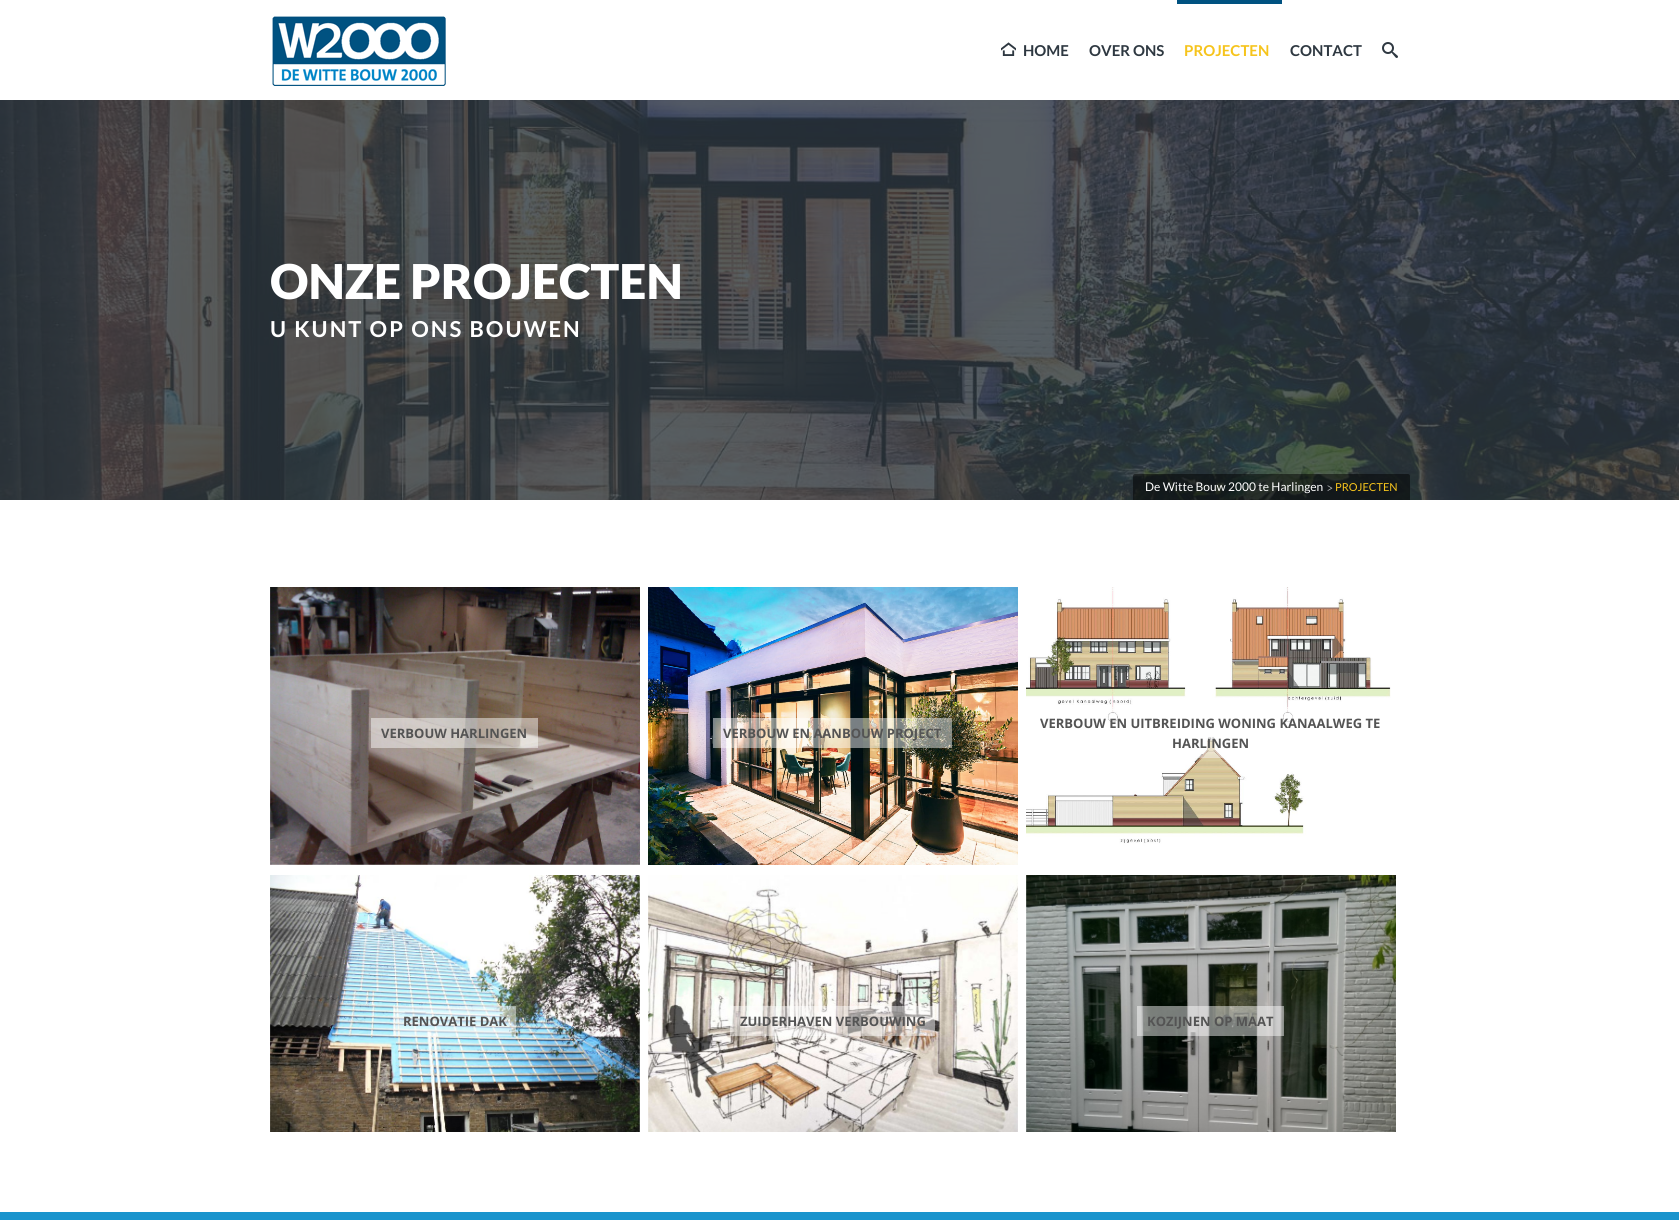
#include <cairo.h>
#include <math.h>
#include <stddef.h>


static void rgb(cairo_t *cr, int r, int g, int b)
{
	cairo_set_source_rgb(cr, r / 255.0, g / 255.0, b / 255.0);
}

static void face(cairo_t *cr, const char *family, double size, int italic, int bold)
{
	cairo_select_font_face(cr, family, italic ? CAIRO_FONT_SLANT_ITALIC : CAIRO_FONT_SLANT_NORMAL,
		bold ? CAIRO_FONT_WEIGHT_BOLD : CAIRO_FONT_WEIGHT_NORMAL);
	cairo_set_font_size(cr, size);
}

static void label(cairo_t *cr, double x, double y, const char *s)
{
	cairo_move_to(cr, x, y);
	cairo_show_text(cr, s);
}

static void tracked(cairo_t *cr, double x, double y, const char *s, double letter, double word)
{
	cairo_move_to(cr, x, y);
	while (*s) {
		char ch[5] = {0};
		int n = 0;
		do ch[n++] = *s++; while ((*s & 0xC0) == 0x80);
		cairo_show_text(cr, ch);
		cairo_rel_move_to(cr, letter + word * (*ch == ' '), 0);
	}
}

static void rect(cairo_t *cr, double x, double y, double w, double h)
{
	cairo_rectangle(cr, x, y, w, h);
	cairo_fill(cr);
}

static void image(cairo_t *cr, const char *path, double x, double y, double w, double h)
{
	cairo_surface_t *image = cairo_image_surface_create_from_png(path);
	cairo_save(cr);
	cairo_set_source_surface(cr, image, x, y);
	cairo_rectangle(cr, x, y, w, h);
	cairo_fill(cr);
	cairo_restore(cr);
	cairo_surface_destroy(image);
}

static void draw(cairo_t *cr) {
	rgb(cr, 255, 255, 255);
	cairo_paint(cr);
	image(cr, "image0.png", 272, 16, 174, 70);
	rgb(cr, 0, 82, 129);
	rect(cr, 1177, 0, 105, 4);
	image(cr, "image1.png", 1001, 42, 15, 14);
	face(cr, "Lato", 15, 0, 1);
	rgb(cr, 46, 56, 65);
	label(cr, 1023, 56, "HOME");
	label(cr, 1089, 56, "OVER ONS");
	rgb(cr, 246, 196, 28);
	label(cr, 1184, 56, "PROJECTEN");
	rgb(cr, 46, 56, 65);
	label(cr, 1290, 56, "CONTACT");
	image(cr, "image2.png", 1382, 42, 16, 16);
	image(cr, "image3.png", 0, 100, 1679, 400);
	face(cr, "Lato Black", 48, 0, 0);
	rgb(cr, 255, 255, 255);
	label(cr, 270, 299, "ONZE PROJECTEN");
	face(cr, "Lato", 22, 0, 1);
	tracked(cr, 270, 337, "U KUNT OP ONS BOUWEN", 2, 0);
	cairo_set_source_rgba(cr, 0, 0, 0, 0.5);
	cairo_new_path(cr);
	cairo_move_to(cr, 1135, 474);
	cairo_line_to(cr, 1408, 474);
	cairo_curve_to(cr, 1409, 474, 1410, 475, 1410, 476);
	cairo_line_to(cr, 1410, 500);
	cairo_line_to(cr, 1133, 500);
	cairo_line_to(cr, 1133, 476);
	cairo_curve_to(cr, 1133, 475, 1134, 474, 1135, 474);
	cairo_close_path(cr);
	cairo_fill(cr);
	face(cr, "Lato", 12, 0, 0);
	rgb(cr, 255, 255, 255);
	label(cr, 1145, 491, "De Witte Bouw 2000 te Harlingen");
	face(cr, "Raleway", 11, 0, 0);
	rgb(cr, 184, 186, 187);
	label(cr, 1327, 491, ">");
	face(cr, "Lato", 11, 0, 0);
	rgb(cr, 246, 196, 28);
	label(cr, 1335, 491, "PROJECTEN");
	image(cr, "image4.png", 270, 587, 370, 278);
	cairo_set_source_rgba(cr, 1, 1, 1, 0.47);
	rect(cr, 371, 718, 167, 30);
	face(cr, "Open Sans", 13, 0, 1);
	rgb(cr, 84, 84, 84);
	label(cr, 381, 738, "VERBOUW HARLINGEN");
	image(cr, "image5.png", 648, 587, 370, 278);
	cairo_set_source_rgba(cr, 1, 1, 1, 0.47);
	rect(cr, 713, 718, 239, 30);
	rgb(cr, 84, 84, 84);
	label(cr, 723, 738, "VERBOUW EN AANBOUW PROJECT");
	image(cr, "image6.png", 1026, 587, 370, 278);
	cairo_set_source_rgba(cr, 1, 1, 1, 0.47);
	rect(cr, 1108, 708, 185, 50);
	rgb(cr, 84, 84, 84);
	label(cr, 1040, 728, "VERBOUW EN UITBREIDING WONING KANAALWEG TE");
	label(cr, 1172, 748, "HARLINGEN");
	image(cr, "image7.png", 270, 875, 370, 257);
	cairo_set_source_rgba(cr, 1, 1, 1, 0.47);
	rect(cr, 393, 1006, 123, 30);
	rgb(cr, 84, 84, 84);
	label(cr, 403, 1026, "RENOVATIE DAK");
	image(cr, "image8.png", 648, 875, 370, 257);
	cairo_set_source_rgba(cr, 1, 1, 1, 0.47);
	rect(cr, 730, 1006, 205, 30);
	rgb(cr, 84, 84, 84);
	label(cr, 740, 1026, "ZUIDERHAVEN VERBOUWING");
	image(cr, "image9.png", 1026, 875, 370, 257);
	cairo_set_source_rgba(cr, 1, 1, 1, 0.47);
	rect(cr, 1137, 1006, 147, 30);
	rgb(cr, 84, 84, 84);
	label(cr, 1147, 1026, "KOZIJNEN OP MAAT");
	rgb(cr, 26, 148, 205);
	rect(cr, 0, 1212, 1679, 8);
}

int main(void) {
	cairo_surface_t *surface = cairo_image_surface_create(CAIRO_FORMAT_RGB24, 1679, 1220);
	cairo_t *cr = cairo_create(surface);
	cairo_font_options_t *options = cairo_font_options_create();
	cairo_font_options_set_hint_metrics(options, CAIRO_HINT_METRICS_OFF);
	cairo_font_options_set_hint_style(options, CAIRO_HINT_STYLE_NONE);
	cairo_set_font_options(cr, options);
	cairo_set_miter_limit(cr, 4);
	draw(cr);
	cairo_surface_write_to_png(surface, "render.png");
	cairo_font_options_destroy(options);
	cairo_destroy(cr);
	cairo_surface_destroy(surface);
	return 0;
}
